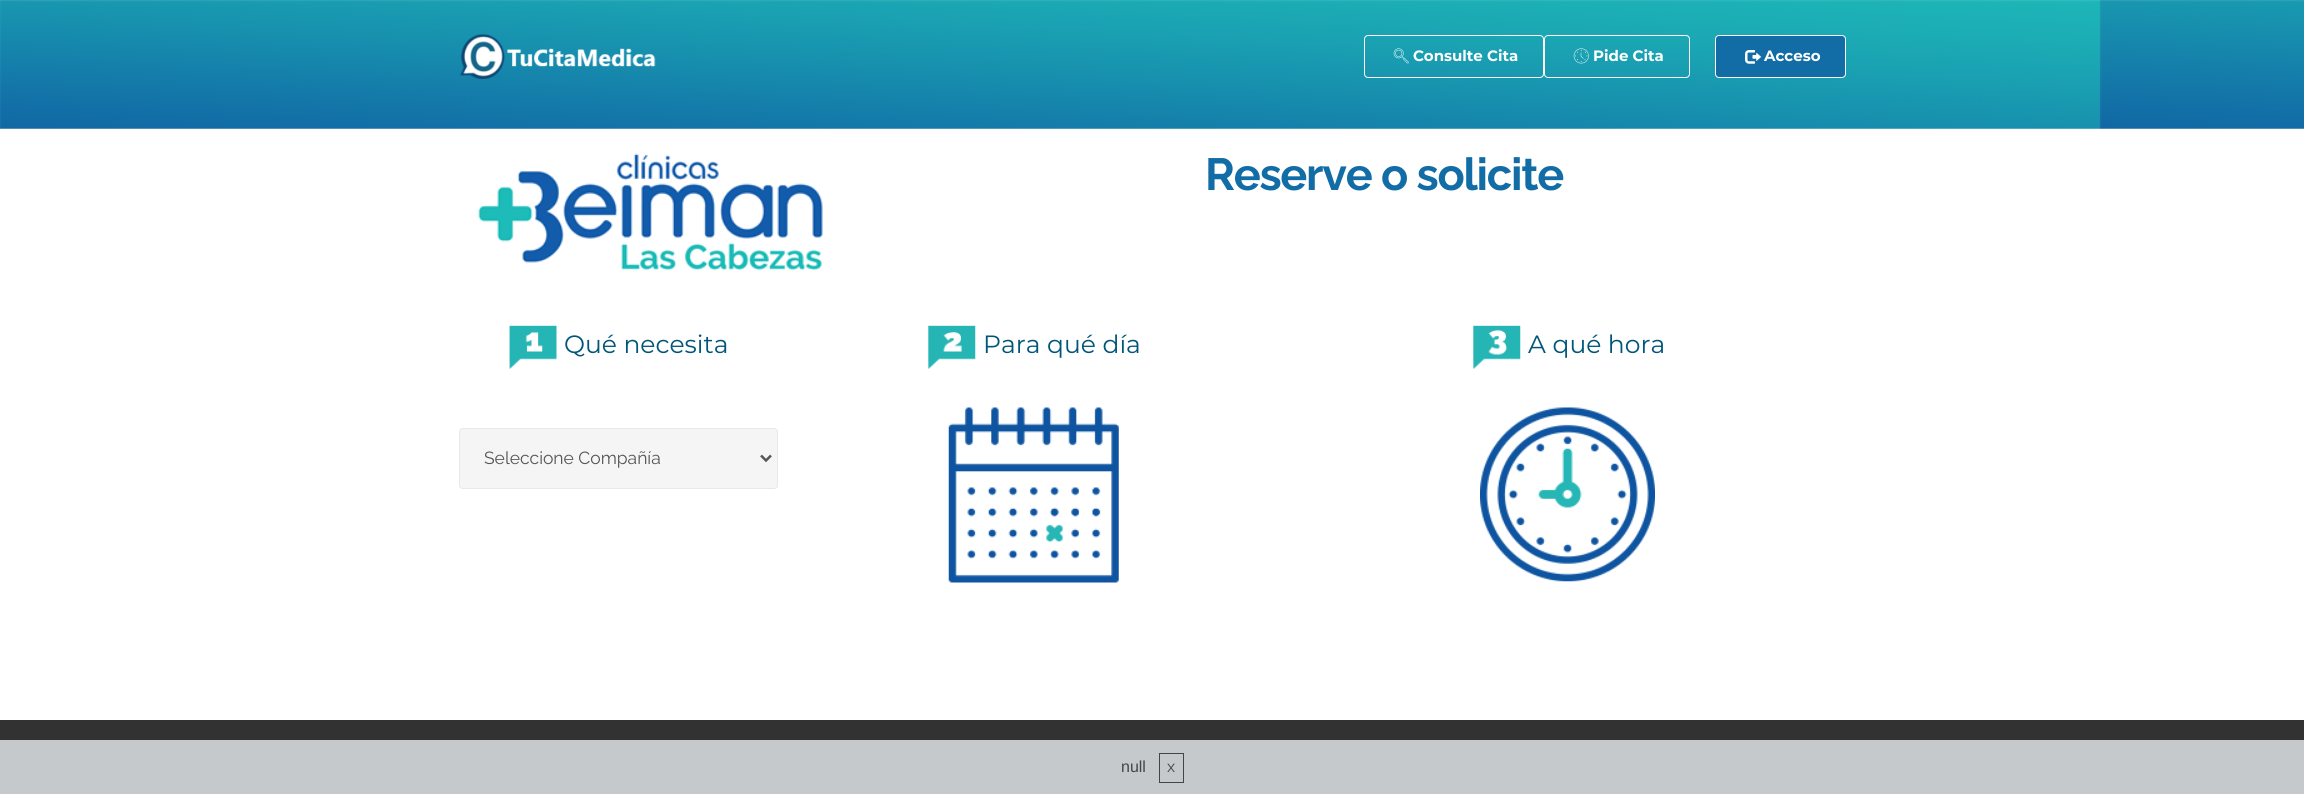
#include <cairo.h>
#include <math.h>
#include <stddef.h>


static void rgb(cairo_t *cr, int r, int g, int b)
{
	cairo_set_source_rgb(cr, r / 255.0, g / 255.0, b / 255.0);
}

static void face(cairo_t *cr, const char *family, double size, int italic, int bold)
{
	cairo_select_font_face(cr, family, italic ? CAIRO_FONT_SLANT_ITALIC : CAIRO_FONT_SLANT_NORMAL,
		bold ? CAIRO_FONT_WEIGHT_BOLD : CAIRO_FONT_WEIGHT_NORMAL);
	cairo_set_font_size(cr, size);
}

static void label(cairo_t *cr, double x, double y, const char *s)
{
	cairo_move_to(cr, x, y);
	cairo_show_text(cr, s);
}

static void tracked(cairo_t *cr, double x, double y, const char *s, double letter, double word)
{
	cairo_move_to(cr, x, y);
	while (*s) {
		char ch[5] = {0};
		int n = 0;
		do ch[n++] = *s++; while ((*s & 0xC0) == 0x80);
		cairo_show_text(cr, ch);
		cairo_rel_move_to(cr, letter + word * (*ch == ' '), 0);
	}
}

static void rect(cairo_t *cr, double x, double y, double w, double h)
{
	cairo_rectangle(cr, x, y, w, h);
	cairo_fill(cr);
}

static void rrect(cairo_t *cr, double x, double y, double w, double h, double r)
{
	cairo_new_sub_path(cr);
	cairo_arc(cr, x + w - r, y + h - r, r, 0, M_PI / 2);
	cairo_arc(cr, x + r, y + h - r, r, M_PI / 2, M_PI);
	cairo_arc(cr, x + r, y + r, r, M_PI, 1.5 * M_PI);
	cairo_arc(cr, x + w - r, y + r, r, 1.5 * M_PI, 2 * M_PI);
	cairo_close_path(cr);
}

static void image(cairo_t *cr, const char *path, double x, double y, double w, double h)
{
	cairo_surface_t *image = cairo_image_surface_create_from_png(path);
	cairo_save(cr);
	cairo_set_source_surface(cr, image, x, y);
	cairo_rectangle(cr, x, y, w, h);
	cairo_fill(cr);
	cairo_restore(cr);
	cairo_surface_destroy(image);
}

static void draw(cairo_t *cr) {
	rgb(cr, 255, 255, 255);
	cairo_paint(cr);
	image(cr, "image0.png", 0, 0, 2304, 129);
	image(cr, "image1.png", 460, 34, 196, 45);
	rrect(cr, 1364.5, 35.5, 179, 42, 3.5);
	rgb(cr, 255, 255, 255);
	cairo_set_line_width(cr, 1);
	cairo_stroke(cr);
	image(cr, "image2.png", 1393, 48, 16, 16);
	face(cr, "Montserrat", 15, 0, 1);
	label(cr, 1413, 61, "Consulte Cita");
	rrect(cr, 1544.5, 35.5, 145, 42, 3.5);
	cairo_stroke(cr);
	image(cr, "image3.png", 1573, 48, 16, 16);
	label(cr, 1593, 61, "Pide Cita");
	rgb(cr, 18, 109, 166);
	rrect(cr, 1715.5, 35.5, 130, 42, 3.5);
	cairo_fill_preserve(cr);
	rgb(cr, 255, 255, 255);
	cairo_stroke(cr);
	image(cr, "image4.png", 1745, 50, 16, 14);
	label(cr, 1764, 61, "Acceso");
	image(cr, "image5.png", 478, 153, 345, 118);
	face(cr, "Raleway", 45, 0, 1);
	rgb(cr, 18, 109, 166);
	tracked(cr, 1205, 190, "Reserve o solicite", -1.25, 0);
	image(cr, "image6.png", 509, 325, 48, 44);
	face(cr, "Montserrat", 25, 0, 0);
	rgb(cr, 0, 86, 121);
	label(cr, 564, 353, "Qué necesita");
	image(cr, "image7.png", 928, 325, 48, 44);
	label(cr, 983, 353, "Para qué día");
	image(cr, "image8.png", 1473, 325, 48, 44);
	label(cr, 1528, 353, "A qué hora");
	rgb(cr, 245, 245, 245);
	rrect(cr, 459.5, 428.5, 318, 60, 3.5);
	cairo_fill_preserve(cr);
	rgb(cr, 232, 232, 232);
	cairo_stroke(cr);
	cairo_new_path(cr);
	cairo_move_to(cr, 761, 455.5);
	cairo_line_to(cr, 766, 460.5);
	cairo_line_to(cr, 771, 455.5);
	rgb(cr, 86, 86, 86);
	cairo_set_line_width(cr, 2.5);
	cairo_stroke(cr);
	face(cr, "Raleway", 17.5, 0, 0);
	label(cr, 484, 464, "Seleccione Compañía");
	image(cr, "image9.png", 948, 407, 171, 176);
	image(cr, "image10.png", 1480, 407, 175, 175);
	rgb(cr, 50, 50, 50);
	rect(cr, 0, 720, 2304, 74);
	cairo_set_source_rgba(cr, 0.918, 0.937, 0.945, 0.8);
	rect(cr, 0, 740, 2304, 54);
	face(cr, "Liberation Sans", 16, 0, 0);
	rgb(cr, 63, 69, 72);
	label(cr, 1121, 772, "null");
	cairo_rectangle(cr, 1159.5, 753.5, 24, 29);
	cairo_set_line_width(cr, 1);
	cairo_stroke(cr);
	face(cr, "Raleway", 16, 0, 0);
	label(cr, 1167, 772, "x");
}

int main(void) {
	cairo_surface_t *surface = cairo_image_surface_create(CAIRO_FORMAT_RGB24, 2304, 794);
	cairo_t *cr = cairo_create(surface);
	cairo_font_options_t *options = cairo_font_options_create();
	cairo_font_options_set_hint_metrics(options, CAIRO_HINT_METRICS_OFF);
	cairo_font_options_set_hint_style(options, CAIRO_HINT_STYLE_NONE);
	cairo_set_font_options(cr, options);
	cairo_set_miter_limit(cr, 4);
	draw(cr);
	cairo_surface_write_to_png(surface, "render.png");
	cairo_font_options_destroy(options);
	cairo_destroy(cr);
	cairo_surface_destroy(surface);
	return 0;
}
